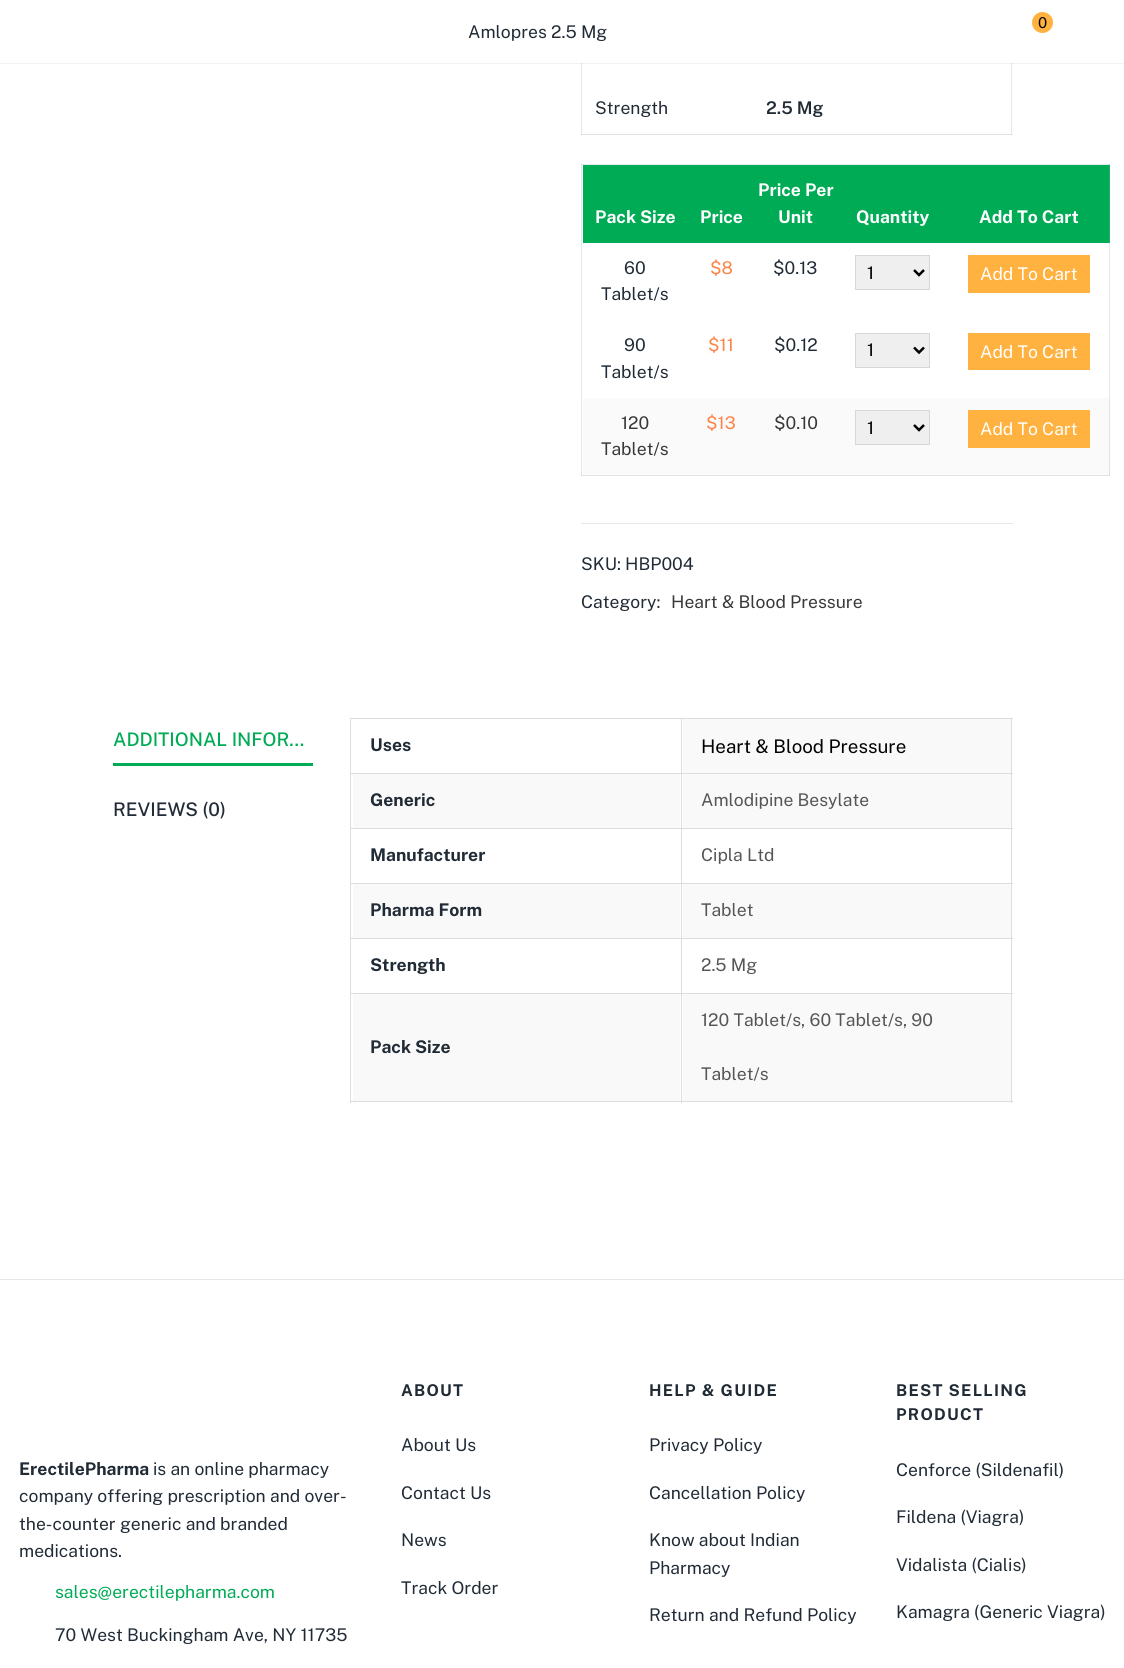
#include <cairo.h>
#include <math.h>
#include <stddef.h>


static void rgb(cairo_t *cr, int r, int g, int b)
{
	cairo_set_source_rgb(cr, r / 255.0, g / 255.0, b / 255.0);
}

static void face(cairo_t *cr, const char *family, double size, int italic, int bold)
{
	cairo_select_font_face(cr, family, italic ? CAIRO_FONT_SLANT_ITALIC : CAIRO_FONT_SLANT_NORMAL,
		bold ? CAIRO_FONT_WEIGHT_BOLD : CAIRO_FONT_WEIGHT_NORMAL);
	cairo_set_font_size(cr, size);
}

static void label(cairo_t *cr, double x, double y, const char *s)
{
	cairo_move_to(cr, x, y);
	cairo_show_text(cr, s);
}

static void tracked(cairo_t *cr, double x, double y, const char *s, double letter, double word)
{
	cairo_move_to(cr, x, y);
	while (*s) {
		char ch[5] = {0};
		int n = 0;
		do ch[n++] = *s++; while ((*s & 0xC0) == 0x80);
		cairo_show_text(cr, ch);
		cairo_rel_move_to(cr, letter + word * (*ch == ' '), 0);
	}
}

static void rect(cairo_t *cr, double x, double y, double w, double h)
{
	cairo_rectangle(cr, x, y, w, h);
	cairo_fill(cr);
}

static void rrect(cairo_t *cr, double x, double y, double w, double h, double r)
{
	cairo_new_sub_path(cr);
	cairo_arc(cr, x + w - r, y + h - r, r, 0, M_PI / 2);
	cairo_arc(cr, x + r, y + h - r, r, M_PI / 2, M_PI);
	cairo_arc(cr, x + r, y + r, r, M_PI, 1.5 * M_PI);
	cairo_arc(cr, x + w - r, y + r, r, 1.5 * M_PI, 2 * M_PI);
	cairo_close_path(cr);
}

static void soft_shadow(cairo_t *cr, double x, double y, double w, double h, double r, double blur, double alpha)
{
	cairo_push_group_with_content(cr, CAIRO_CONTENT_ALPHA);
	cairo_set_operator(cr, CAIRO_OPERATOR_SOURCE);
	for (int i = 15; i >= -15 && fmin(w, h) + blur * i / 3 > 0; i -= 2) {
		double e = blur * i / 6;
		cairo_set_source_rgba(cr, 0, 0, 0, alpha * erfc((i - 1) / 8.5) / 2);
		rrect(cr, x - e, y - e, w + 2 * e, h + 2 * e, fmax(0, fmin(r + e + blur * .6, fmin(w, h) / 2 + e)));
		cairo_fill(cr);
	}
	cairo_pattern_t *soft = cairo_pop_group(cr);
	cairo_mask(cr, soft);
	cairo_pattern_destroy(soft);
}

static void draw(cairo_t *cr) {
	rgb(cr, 255, 255, 255);
	cairo_paint(cr);
	rgb(cr, 229, 232, 235);
	rect(cr, 581, 164, 1, 312);
	rect(cr, 581, 475, 2, 1);
	rgb(cr, 209, 214, 220);
	rect(cr, 581, 475, 1, 1);
	rgb(cr, 229, 232, 235);
	rect(cr, 1109, 243, 1, 155);
	rect(cr, 581, 63, 1, 72);
	rect(cr, 1011, 63, 1, 72);
	rgb(cr, 0, 0, 0);
	soft_shadow(cr, 0, 0, 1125, 63, 0, 0.5, 0.2);
	rgb(cr, 255, 255, 255);
	rect(cr, 0, 0, 1124, 63);
	rgb(cr, 255, 178, 64);
	cairo_arc(cr, 1042.5, 22.5, 12, 0, 2 * M_PI);
	cairo_fill_preserve(cr);
	rgb(cr, 255, 255, 255);
	cairo_set_line_width(cr, 3);
	cairo_stroke(cr);
	face(cr, "Public Sans Thin", 15, 0, 0);
	rgb(cr, 0, 0, 0);
	label(cr, 1038, 28, "0");
	face(cr, "Public Sans Thin", 17.5, 0, 0);
	rgb(cr, 33, 43, 54);
	label(cr, 468, 38, "Amlopres 2.5 Mg");
	rgb(cr, 225, 225, 225);
	rect(cr, 581, 134, 432, 1);
	rgb(cr, 206, 209, 212);
	rect(cr, 581, 134, 1, 1);
	rgb(cr, 33, 43, 54);
	label(cr, 595, 114, "Strength");
	face(cr, "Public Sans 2 Thin", 17.5, 0, 0);
	label(cr, 766, 114, "2.5 Mg");
	rgb(cr, 229, 232, 235);
	rect(cr, 581, 164, 529, 1);
	rgb(cr, 209, 214, 220);
	rect(cr, 581, 164, 1, 1);
	rect(cr, 1109, 164, 1, 1);
	rgb(cr, 0, 171, 85);
	rect(cr, 583, 165, 526, 78);
	face(cr, "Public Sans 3 Thin", 17.5, 0, 0);
	rgb(cr, 255, 255, 255);
	label(cr, 595, 223, "Pack Size");
	label(cr, 700, 223, "Price");
	label(cr, 758, 196, "Price Per");
	label(cr, 778, 223, "Unit");
	label(cr, 856, 223, "Quantity");
	rgb(cr, 35, 168, 106);
	rect(cr, 1109, 165, 1, 78);
	rgb(cr, 255, 255, 255);
	label(cr, 979, 223, "Add To Cart");
	face(cr, "Public Sans Thin", 17.5, 0, 0);
	rgb(cr, 33, 43, 54);
	label(cr, 624, 274, "60");
	label(cr, 601, 300, "Tablet/s");
	rgb(cr, 255, 130, 70);
	label(cr, 710, 274, "$8");
	rgb(cr, 33, 43, 54);
	label(cr, 773, 274, "$0.13");
	rgb(cr, 239, 239, 239);
	cairo_rectangle(cr, 855.5, 255.5, 74, 34);
	cairo_fill_preserve(cr);
	rgb(cr, 215, 215, 215);
	cairo_set_line_width(cr, 1);
	cairo_stroke(cr);
	cairo_new_path(cr);
	cairo_move_to(cr, 914, 270);
	cairo_line_to(cr, 919, 275);
	cairo_line_to(cr, 924, 270);
	rgb(cr, 0, 0, 0);
	cairo_set_line_width(cr, 2.5);
	cairo_stroke(cr);
	label(cr, 867, 279, "1");
	rgb(cr, 255, 178, 64);
	rect(cr, 968, 255, 122, 38);
	rgb(cr, 255, 255, 255);
	label(cr, 980, 280, "Add To Cart");
	rgb(cr, 33, 43, 54);
	label(cr, 624, 351, "90");
	label(cr, 601, 378, "Tablet/s");
	rgb(cr, 255, 130, 70);
	label(cr, 708, 351, "$11");
	rgb(cr, 33, 43, 54);
	label(cr, 774, 351, "$0.12");
	rgb(cr, 239, 239, 239);
	cairo_rectangle(cr, 855.5, 333.5, 74, 34);
	cairo_fill_preserve(cr);
	rgb(cr, 215, 215, 215);
	cairo_set_line_width(cr, 1);
	cairo_stroke(cr);
	cairo_new_path(cr);
	cairo_move_to(cr, 914, 347.5);
	cairo_line_to(cr, 919, 352.5);
	cairo_line_to(cr, 924, 347.5);
	rgb(cr, 0, 0, 0);
	cairo_set_line_width(cr, 2.5);
	cairo_stroke(cr);
	label(cr, 867, 356, "1");
	rgb(cr, 255, 178, 64);
	rect(cr, 968, 333, 122, 37);
	rgb(cr, 255, 255, 255);
	label(cr, 980, 358, "Add To Cart");
	rgb(cr, 250, 250, 250);
	rect(cr, 583, 398, 526, 77);
	rgb(cr, 225, 228, 231);
	rect(cr, 583, 475, 527, 1);
	rgb(cr, 56, 56, 56);
	label(cr, 621, 429, "120");
	label(cr, 601, 455, "Tablet/s");
	rgb(cr, 255, 130, 70);
	label(cr, 706, 429, "$13");
	rgb(cr, 56, 56, 56);
	label(cr, 774, 429, "$0.10");
	rgb(cr, 239, 239, 239);
	cairo_rectangle(cr, 855.5, 410.5, 74, 34);
	cairo_fill_preserve(cr);
	rgb(cr, 215, 215, 215);
	cairo_set_line_width(cr, 1);
	cairo_stroke(cr);
	cairo_new_path(cr);
	cairo_move_to(cr, 914, 425);
	cairo_line_to(cr, 919, 430);
	cairo_line_to(cr, 924, 425);
	rgb(cr, 0, 0, 0);
	cairo_set_line_width(cr, 2.5);
	cairo_stroke(cr);
	label(cr, 867, 434, "1");
	rgb(cr, 225, 228, 231);
	rect(cr, 1109, 398, 1, 78);
	rgb(cr, 206, 211, 217);
	rect(cr, 1109, 475, 1, 1);
	rgb(cr, 255, 178, 64);
	rect(cr, 968, 410, 122, 38);
	rgb(cr, 255, 255, 255);
	label(cr, 980, 435, "Add To Cart");
	rgb(cr, 229, 232, 235);
	rect(cr, 581, 523, 432, 1);
	rgb(cr, 33, 43, 54);
	label(cr, 581, 570, "SKU: HBP004");
	label(cr, 581, 608, "Category:");
	rgb(cr, 56, 56, 56);
	label(cr, 671, 608, "Heart & Blood Pressure");
	face(cr, "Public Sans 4 Thin", 18.75, 0, 0);
	rgb(cr, 0, 171, 85);
	label(cr, 113, 746, "ADDITIONAL INFOR…");
	rect(cr, 113, 763, 200, 3);
	rgb(cr, 33, 43, 54);
	label(cr, 113, 816, "REVIEWS (0)");
	rgb(cr, 221, 221, 221);
	rect(cr, 350, 718, 663, 1);
	rect(cr, 1011, 718, 1, 385);
	rect(cr, 350, 1101, 663, 1);
	rect(cr, 350, 718, 1, 385);
	rect(cr, 681, 993, 1, 110);
	rect(cr, 681, 993, 332, 1);
	rect(cr, 681, 938, 1, 56);
	rect(cr, 681, 938, 332, 1);
	rect(cr, 681, 883, 1, 56);
	rect(cr, 681, 883, 332, 1);
	rect(cr, 681, 828, 1, 56);
	rect(cr, 681, 828, 332, 1);
	rect(cr, 681, 773, 1, 56);
	rect(cr, 681, 773, 332, 1);
	rect(cr, 681, 718, 1, 56);
	rect(cr, 350, 773, 333, 1);
	face(cr, "Public Sans 3 Thin", 17.5, 0, 0);
	rgb(cr, 33, 43, 54);
	label(cr, 370, 751, "Uses");
	rgb(cr, 249, 249, 249);
	rect(cr, 683, 719, 328, 54);
	face(cr, "Public Sans Thin", 18.75, 0, 0);
	rgb(cr, 0, 0, 0);
	label(cr, 701, 753, "Heart & Blood Pressure");
	rgb(cr, 249, 249, 249);
	rect(cr, 353, 774, 327, 54);
	rgb(cr, 221, 221, 221);
	rect(cr, 350, 828, 333, 1);
	face(cr, "Public Sans 3 Thin", 17.5, 0, 0);
	rgb(cr, 33, 43, 54);
	label(cr, 370, 806, "Generic");
	rgb(cr, 249, 249, 249);
	rect(cr, 683, 774, 328, 54);
	face(cr, "Public Sans Thin", 17.5, 0, 0);
	rgb(cr, 85, 85, 85);
	label(cr, 701, 806, "Amlodipine Besylate");
	rgb(cr, 221, 221, 221);
	rect(cr, 350, 883, 333, 1);
	face(cr, "Public Sans 3 Thin", 17.5, 0, 0);
	rgb(cr, 33, 43, 54);
	label(cr, 370, 861, "Manufacturer");
	face(cr, "Public Sans Thin", 17.5, 0, 0);
	rgb(cr, 85, 85, 85);
	label(cr, 701, 861, "Cipla Ltd");
	rgb(cr, 249, 249, 249);
	rect(cr, 353, 884, 327, 54);
	rgb(cr, 221, 221, 221);
	rect(cr, 350, 938, 333, 1);
	face(cr, "Public Sans 3 Thin", 17.5, 0, 0);
	rgb(cr, 33, 43, 54);
	label(cr, 370, 916, "Pharma Form");
	rgb(cr, 249, 249, 249);
	rect(cr, 683, 884, 328, 54);
	face(cr, "Public Sans Thin", 17.5, 0, 0);
	rgb(cr, 85, 85, 85);
	label(cr, 701, 916, "Tablet");
	rgb(cr, 221, 221, 221);
	rect(cr, 350, 993, 333, 1);
	face(cr, "Public Sans 3 Thin", 17.5, 0, 0);
	rgb(cr, 33, 43, 54);
	label(cr, 370, 971, "Strength");
	face(cr, "Public Sans Thin", 17.5, 0, 0);
	rgb(cr, 85, 85, 85);
	label(cr, 701, 971, "2.5 Mg");
	rgb(cr, 249, 249, 249);
	rect(cr, 353, 994, 327, 107);
	face(cr, "Public Sans 3 Thin", 17.5, 0, 0);
	rgb(cr, 33, 43, 54);
	label(cr, 370, 1053, "Pack Size");
	rgb(cr, 249, 249, 249);
	rect(cr, 683, 994, 328, 107);
	face(cr, "Public Sans Thin", 17.5, 0, 0);
	rgb(cr, 85, 85, 85);
	label(cr, 701, 1026, "120 Tablet/s, 60 Tablet/s, 90");
	label(cr, 701, 1080, "Tablet/s");
	rgb(cr, 229, 232, 235);
	rect(cr, 0, 1279, 1124, 1);
	face(cr, "Public Sans 3 Thin", 17.5, 0, 0);
	rgb(cr, 33, 43, 54);
	label(cr, 19, 1475, "ErectilePharma");
	face(cr, "Public Sans Thin", 17.5, 0, 0);
	label(cr, 153, 1475, "is an online pharmacy");
	label(cr, 19, 1502, "company offering prescription and over-");
	label(cr, 19, 1530, "the-counter generic and branded");
	label(cr, 19, 1557, "medications.");
	rgb(cr, 0, 171, 85);
	label(cr, 55, 1598, "sales@erectilepharma.com");
	rgb(cr, 33, 43, 54);
	label(cr, 55, 1641, "70 West Buckingham Ave, NY 11735");
	face(cr, "Public Sans 3 Thin", 16.25, 0, 0);
	tracked(cr, 401, 1396, "ABOUT", 1.25, 0);
	face(cr, "Public Sans Thin", 17.5, 0, 0);
	label(cr, 401, 1451, "About Us");
	label(cr, 401, 1499, "Contact Us");
	label(cr, 401, 1546, "News");
	label(cr, 401, 1594, "Track Order");
	face(cr, "Public Sans 3 Thin", 16.25, 0, 0);
	tracked(cr, 649, 1396, "HELP & GUIDE", 1.25, 0);
	face(cr, "Public Sans Thin", 17.5, 0, 0);
	label(cr, 649, 1451, "Privacy Policy");
	label(cr, 649, 1499, "Cancellation Policy");
	label(cr, 649, 1546, "Know about Indian");
	label(cr, 649, 1574, "Pharmacy");
	label(cr, 649, 1621, "Return and Refund Policy");
	face(cr, "Public Sans 3 Thin", 16.25, 0, 0);
	tracked(cr, 896, 1396, "BEST SELLING", 1.25, 0);
	tracked(cr, 896, 1420, "PRODUCT", 1.25, 0);
	face(cr, "Public Sans Thin", 17.5, 0, 0);
	label(cr, 896, 1476, "Cenforce (Sildenafil)");
	label(cr, 896, 1523, "Fildena (Viagra)");
	label(cr, 896, 1571, "Vidalista (Cialis)");
	label(cr, 896, 1618, "Kamagra (Generic Viagra)");
}

int main(void) {
	cairo_surface_t *surface = cairo_image_surface_create(CAIRO_FORMAT_RGB24, 1124, 1668);
	cairo_t *cr = cairo_create(surface);
	cairo_font_options_t *options = cairo_font_options_create();
	cairo_font_options_set_hint_metrics(options, CAIRO_HINT_METRICS_OFF);
	cairo_font_options_set_hint_style(options, CAIRO_HINT_STYLE_NONE);
	cairo_set_font_options(cr, options);
	cairo_set_miter_limit(cr, 4);
	draw(cr);
	cairo_surface_write_to_png(surface, "render.png");
	cairo_font_options_destroy(options);
	cairo_destroy(cr);
	cairo_surface_destroy(surface);
	return 0;
}
